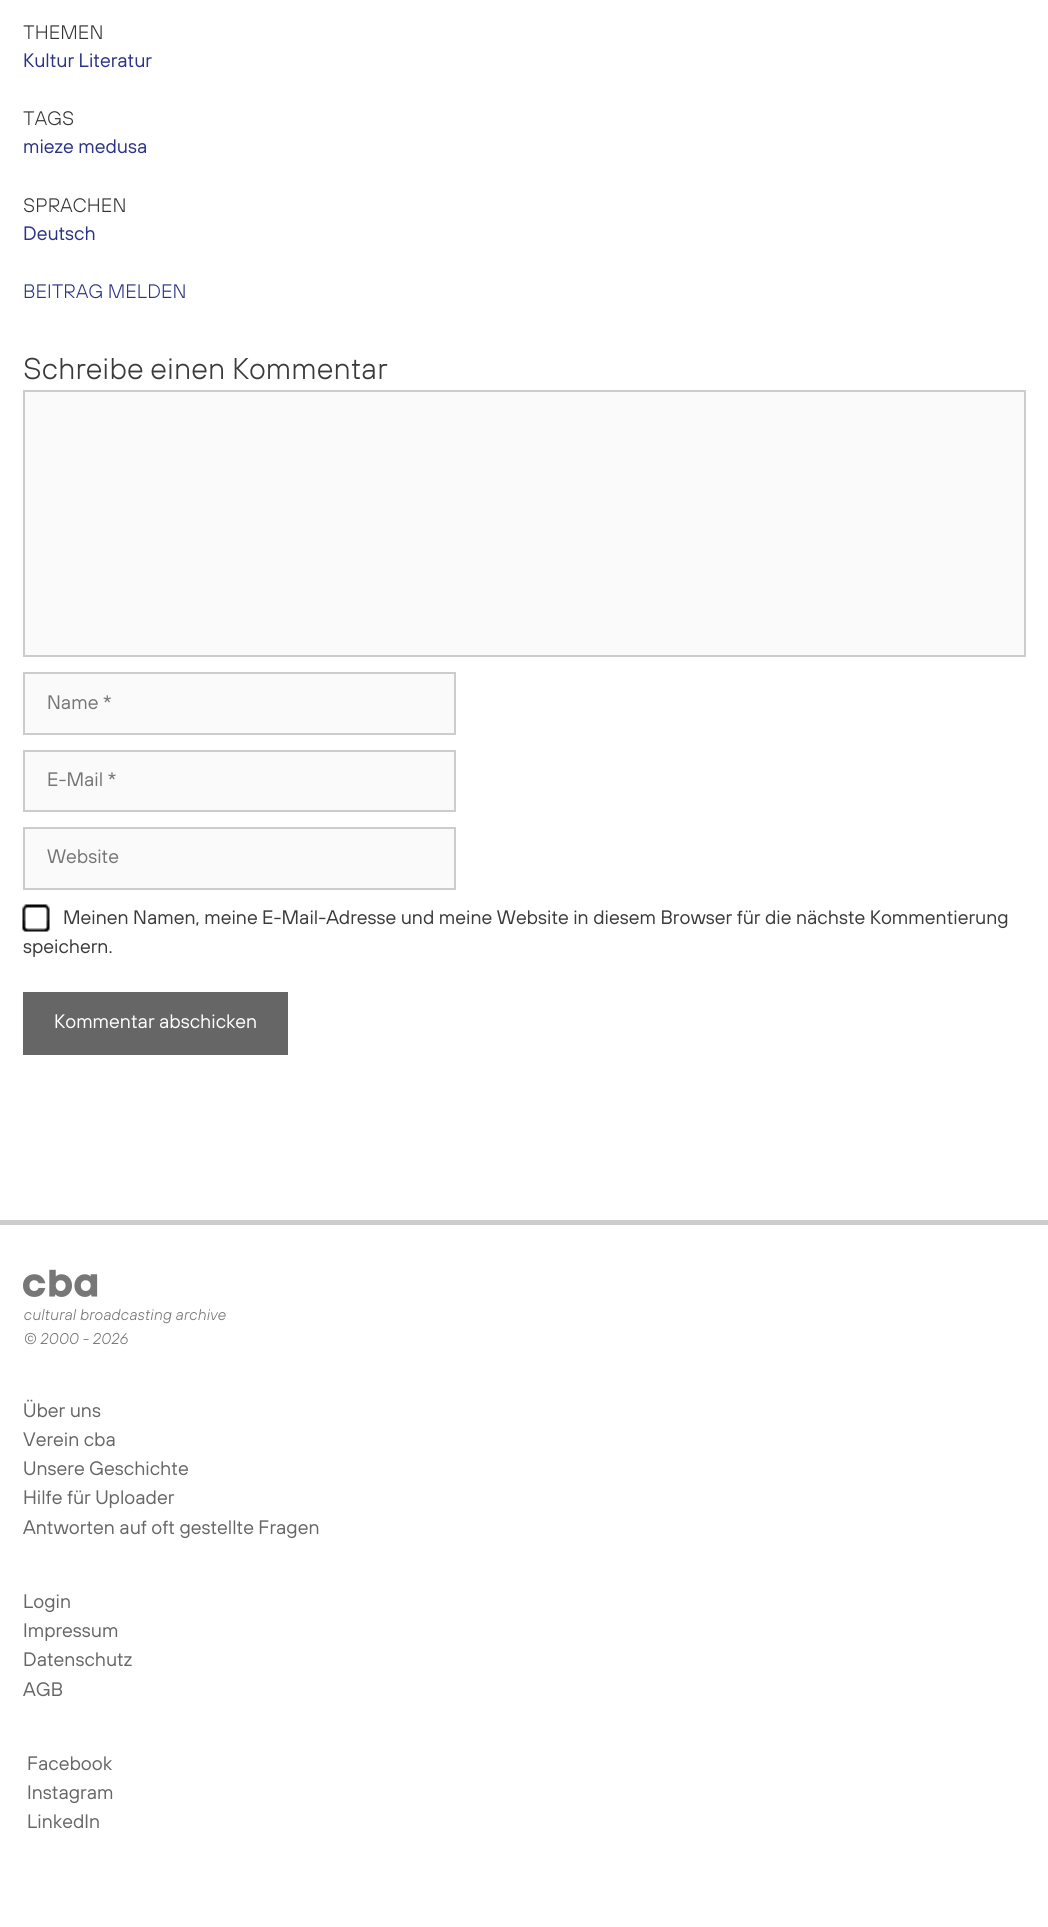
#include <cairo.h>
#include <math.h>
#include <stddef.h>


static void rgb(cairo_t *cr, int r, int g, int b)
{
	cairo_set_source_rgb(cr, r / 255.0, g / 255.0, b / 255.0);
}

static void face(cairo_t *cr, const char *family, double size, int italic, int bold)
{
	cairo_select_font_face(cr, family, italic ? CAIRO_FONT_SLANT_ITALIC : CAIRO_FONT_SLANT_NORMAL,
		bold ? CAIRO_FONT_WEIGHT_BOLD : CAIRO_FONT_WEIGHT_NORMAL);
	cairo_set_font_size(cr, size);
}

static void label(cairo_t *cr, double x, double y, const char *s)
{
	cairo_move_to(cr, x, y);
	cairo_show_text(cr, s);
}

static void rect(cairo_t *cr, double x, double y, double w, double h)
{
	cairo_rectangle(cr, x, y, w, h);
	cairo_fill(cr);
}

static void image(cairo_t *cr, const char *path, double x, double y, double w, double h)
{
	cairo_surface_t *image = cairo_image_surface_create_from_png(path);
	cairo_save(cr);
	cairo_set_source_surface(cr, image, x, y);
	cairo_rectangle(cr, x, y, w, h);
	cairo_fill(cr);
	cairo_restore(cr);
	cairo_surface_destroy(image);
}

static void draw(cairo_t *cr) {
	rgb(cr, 255, 255, 255);
	cairo_paint(cr);
	face(cr, "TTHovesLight", 19.5, 0, 0);
	rgb(cr, 51, 51, 51);
	label(cr, 23, 39, "THEMEN");
	face(cr, "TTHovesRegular", 19.5, 0, 0);
	rgb(cr, 43, 50, 135);
	label(cr, 23, 67, "Kultur Literatur");
	face(cr, "TTHovesLight", 19.5, 0, 0);
	rgb(cr, 51, 51, 51);
	label(cr, 23, 125, "TAGS");
	face(cr, "TTHovesRegular", 19.5, 0, 0);
	rgb(cr, 43, 50, 135);
	label(cr, 23, 153, "mieze medusa");
	face(cr, "TTHovesLight", 19.5, 0, 0);
	rgb(cr, 51, 51, 51);
	label(cr, 23, 212, "SPRACHEN");
	face(cr, "TTHovesRegular", 19.5, 0, 0);
	rgb(cr, 43, 50, 135);
	label(cr, 23, 240, "Deutsch");
	face(cr, "TTHovesLight", 19.5, 0, 0);
	label(cr, 23, 298, "BEITRAG MELDEN");
	face(cr, "TTHovesLight", 30, 0, 0);
	rgb(cr, 58, 58, 58);
	label(cr, 23, 379, "Schreibe einen Kommentar");
	rgb(cr, 250, 250, 250);
	cairo_rectangle(cr, 24, 391, 1001, 265);
	cairo_fill_preserve(cr);
	rgb(cr, 204, 204, 204);
	cairo_stroke(cr);
	rgb(cr, 250, 250, 250);
	cairo_rectangle(cr, 24, 673, 431, 61);
	cairo_fill_preserve(cr);
	rgb(cr, 204, 204, 204);
	cairo_stroke(cr);
	face(cr, "TTHovesRegular", 19.5, 0, 0);
	rgb(cr, 117, 117, 117);
	label(cr, 47, 709, "Name *");
	rgb(cr, 250, 250, 250);
	cairo_rectangle(cr, 24, 751, 431, 60);
	cairo_fill_preserve(cr);
	rgb(cr, 204, 204, 204);
	cairo_stroke(cr);
	rgb(cr, 117, 117, 117);
	label(cr, 47, 786, "E-Mail *");
	rgb(cr, 250, 250, 250);
	cairo_rectangle(cr, 24, 828, 431, 61);
	cairo_fill_preserve(cr);
	rgb(cr, 204, 204, 204);
	cairo_stroke(cr);
	rgb(cr, 117, 117, 117);
	label(cr, 47, 863, "Website");
	image(cr, "image0.png", 22, 904, 28, 28);
	rgb(cr, 58, 58, 58);
	label(cr, 63, 924, "Meinen Namen, meine E-Mail-Adresse und meine Website in diesem Browser für die nächste Kommentierung");
	label(cr, 23, 953, "speichern.");
	rgb(cr, 102, 102, 102);
	rect(cr, 23, 992, 265, 63);
	rgb(cr, 255, 255, 255);
	label(cr, 54, 1028, "Kommentar abschicken");
	rgb(cr, 204, 204, 204);
	rect(cr, 0, 1220, 1048, 5);
	image(cr, "image1.png", 23, 1269, 75, 28);
	face(cr, "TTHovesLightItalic", 15.6, 0, 0);
	rgb(cr, 117, 117, 117);
	label(cr, 23, 1320, "cultural broadcasting archive");
	label(cr, 23, 1344, "© 2000 - 2026");
	face(cr, "TTHovesRegular", 19.5, 0, 0);
	rgb(cr, 102, 102, 102);
	label(cr, 23, 1417, "Über uns");
	label(cr, 23, 1446, "Verein cba");
	label(cr, 23, 1475, "Unsere Geschichte");
	label(cr, 23, 1504, "Hilfe für Uploader");
	label(cr, 23, 1534, "Antworten auf oft gestellte Fragen");
	label(cr, 23, 1608, "Login");
	label(cr, 23, 1637, "Impressum");
	label(cr, 23, 1666, "Datenschutz");
	label(cr, 23, 1696, "AGB");
	label(cr, 27, 1770, "Facebook");
	label(cr, 27, 1799, "Instagram");
	label(cr, 27, 1828, "LinkedIn");
}

int main(void) {
	cairo_surface_t *surface = cairo_image_surface_create(CAIRO_FORMAT_RGB24, 1048, 1927);
	cairo_t *cr = cairo_create(surface);
	cairo_font_options_t *options = cairo_font_options_create();
	cairo_font_options_set_hint_metrics(options, CAIRO_HINT_METRICS_OFF);
	cairo_font_options_set_hint_style(options, CAIRO_HINT_STYLE_NONE);
	cairo_set_font_options(cr, options);
	cairo_set_miter_limit(cr, 4);
	draw(cr);
	cairo_surface_write_to_png(surface, "render.png");
	cairo_font_options_destroy(options);
	cairo_destroy(cr);
	cairo_surface_destroy(surface);
	return 0;
}
